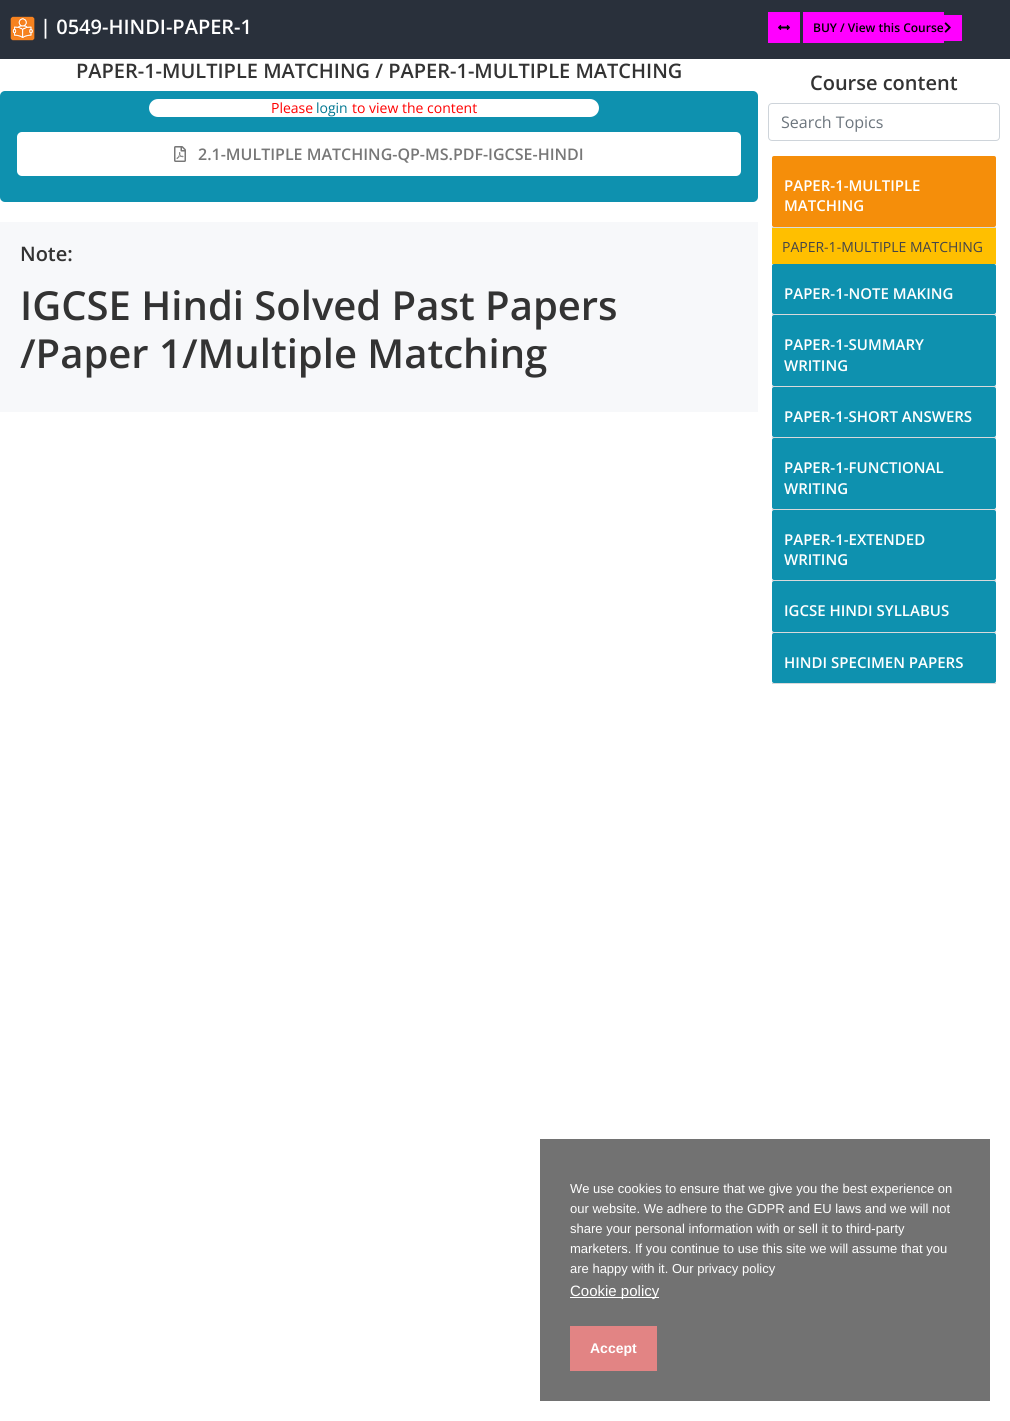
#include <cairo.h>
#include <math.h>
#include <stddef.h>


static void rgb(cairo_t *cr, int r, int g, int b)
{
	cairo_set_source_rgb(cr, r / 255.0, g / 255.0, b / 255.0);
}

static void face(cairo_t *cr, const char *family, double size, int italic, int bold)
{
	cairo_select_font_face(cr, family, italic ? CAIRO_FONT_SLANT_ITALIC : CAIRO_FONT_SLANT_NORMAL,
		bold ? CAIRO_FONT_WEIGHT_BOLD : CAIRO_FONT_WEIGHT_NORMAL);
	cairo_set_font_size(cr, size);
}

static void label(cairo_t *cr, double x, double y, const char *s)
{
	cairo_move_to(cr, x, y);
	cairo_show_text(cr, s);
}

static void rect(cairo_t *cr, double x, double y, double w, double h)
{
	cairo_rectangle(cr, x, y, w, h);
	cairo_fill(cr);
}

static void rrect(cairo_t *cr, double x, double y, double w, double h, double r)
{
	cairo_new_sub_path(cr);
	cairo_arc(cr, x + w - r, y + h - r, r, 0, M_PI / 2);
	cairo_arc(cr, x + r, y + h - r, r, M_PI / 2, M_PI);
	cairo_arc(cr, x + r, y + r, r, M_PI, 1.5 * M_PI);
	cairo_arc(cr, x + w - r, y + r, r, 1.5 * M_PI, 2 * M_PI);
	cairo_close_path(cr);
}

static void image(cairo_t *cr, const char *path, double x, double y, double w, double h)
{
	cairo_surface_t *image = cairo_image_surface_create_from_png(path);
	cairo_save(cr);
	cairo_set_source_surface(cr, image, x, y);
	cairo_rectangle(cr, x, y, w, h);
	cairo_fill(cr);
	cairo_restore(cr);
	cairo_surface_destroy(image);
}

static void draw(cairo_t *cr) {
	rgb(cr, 255, 255, 255);
	cairo_paint(cr);
	rgb(cr, 41, 48, 59);
	rect(cr, 0, 0, 1010, 59);
	image(cr, "image0.png", 10, 16, 25, 25);
	face(cr, "Open Sans SemiBold", 20, 0, 0);
	rgb(cr, 255, 255, 255);
	label(cr, 40, 34, "| 0549-HINDI-PAPER-1");
	rgb(cr, 255, 0, 255);
	rect(cr, 768, 12, 32, 31);
	image(cr, "image1.png", 778, 25, 12, 5);
	rect(cr, 803, 12, 141, 31);
	rect(cr, 944, 15, 18, 26);
	face(cr, "Open Sans SemiBold", 12, 0, 0);
	rgb(cr, 0, 0, 0);
	label(cr, 813, 32, "BUY / View this Course");
	image(cr, "image2.png", 944, 22, 7, 11);
	face(cr, "Open Sans SemiBold", 20, 0, 0);
	rgb(cr, 51, 51, 51);
	label(cr, 76, 78, "PAPER-1-MULTIPLE MATCHING / PAPER-1-MULTIPLE MATCHING");
	rgb(cr, 14, 145, 175);
	rrect(cr, 0, 91, 758, 111, 5);
	cairo_fill(cr);
	rgb(cr, 255, 255, 255);
	rrect(cr, 149, 99, 450, 18, 9);
	cairo_fill(cr);
	face(cr, "Open Sans", 14, 0, 0);
	rgb(cr, 255, 0, 0);
	label(cr, 271, 113, "Please");
	rgb(cr, 0, 119, 145);
	label(cr, 316, 113, "login");
	rgb(cr, 255, 0, 0);
	label(cr, 352, 113, "to view the content");
	rgb(cr, 255, 255, 255);
	rrect(cr, 17, 132, 724, 44, 5);
	cairo_fill(cr);
	image(cr, "image3.png", 174, 146, 12, 16);
	face(cr, "Open Sans SemiBold", 16, 0, 0);
	rgb(cr, 119, 119, 119);
	label(cr, 198, 160, "2.1-MULTIPLE MATCHING-QP-MS.PDF-IGCSE-HINDI");
	rgb(cr, 247, 248, 250);
	rect(cr, 0, 222, 758, 190);
	face(cr, "Open Sans SemiBold", 20, 0, 0);
	rgb(cr, 51, 51, 51);
	label(cr, 20, 261, "Note:");
	face(cr, "Open Sans SemiBold", 40, 0, 0);
	label(cr, 20, 320, "IGCSE Hindi Solved Past Papers");
	label(cr, 20, 368, "/Paper 1/Multiple Matching");
	face(cr, "Open Sans SemiBold", 20, 0, 0);
	label(cr, 810, 90, "Course content");
	rrect(cr, 768.5, 103.5, 231, 37, 3.5);
	rgb(cr, 206, 212, 218);
	cairo_set_line_width(cr, 1);
	cairo_stroke(cr);
	face(cr, "Open Sans", 16, 0, 0);
	rgb(cr, 108, 117, 125);
	label(cr, 781, 128, "Search Topics");
	rgb(cr, 247, 248, 250);
	rect(cr, 772, 156, 224, 71);
	rgb(cr, 216, 217, 219);
	rect(cr, 772, 227, 224, 1);
	rgb(cr, 245, 142, 10);
	rrect(cr, 772, 156, 224, 71, 2);
	cairo_fill(cr);
	face(cr, "Open Sans SemiBold", 15, 0, 0);
	rgb(cr, 255, 255, 255);
	label(cr, 784, 191, "PAPER-1-MULTIPLE");
	label(cr, 784, 211, "MATCHING");
	rgb(cr, 255, 191, 0);
	rect(cr, 772, 228, 224, 36);
	face(cr, "Open Sans", 14, 0, 0);
	rgb(cr, 68, 69, 73);
	label(cr, 782, 252, "PAPER-1-MULTIPLE MATCHING");
	rgb(cr, 247, 248, 250);
	rect(cr, 772, 264, 224, 50);
	rgb(cr, 216, 217, 219);
	rect(cr, 772, 314, 224, 1);
	rgb(cr, 14, 145, 175);
	rrect(cr, 772, 264, 224, 50, 2);
	cairo_fill(cr);
	face(cr, "Open Sans SemiBold", 15, 0, 0);
	rgb(cr, 255, 255, 255);
	label(cr, 784, 299, "PAPER-1-NOTE MAKING");
	rgb(cr, 247, 248, 250);
	rect(cr, 772, 315, 224, 71);
	rgb(cr, 216, 217, 219);
	rect(cr, 772, 386, 224, 1);
	rgb(cr, 14, 145, 175);
	rrect(cr, 772, 315, 224, 71, 2);
	cairo_fill(cr);
	rgb(cr, 255, 255, 255);
	label(cr, 784, 350, "PAPER-1-SUMMARY");
	label(cr, 784, 371, "WRITING");
	rgb(cr, 247, 248, 250);
	rect(cr, 772, 387, 224, 50);
	rgb(cr, 216, 217, 219);
	rect(cr, 772, 437, 224, 1);
	rgb(cr, 14, 145, 175);
	rrect(cr, 772, 387, 224, 50, 2);
	cairo_fill(cr);
	rgb(cr, 255, 255, 255);
	label(cr, 784, 422, "PAPER-1-SHORT ANSWERS");
	rgb(cr, 247, 248, 250);
	rect(cr, 772, 438, 224, 71);
	rgb(cr, 216, 217, 219);
	rect(cr, 772, 509, 224, 1);
	rgb(cr, 14, 145, 175);
	rrect(cr, 772, 438, 224, 71, 2);
	cairo_fill(cr);
	rgb(cr, 255, 255, 255);
	label(cr, 784, 473, "PAPER-1-FUNCTIONAL");
	label(cr, 784, 494, "WRITING");
	rgb(cr, 247, 248, 250);
	rect(cr, 772, 510, 224, 70);
	rgb(cr, 216, 217, 219);
	rect(cr, 772, 580, 224, 1);
	rgb(cr, 14, 145, 175);
	rrect(cr, 772, 510, 224, 70, 2);
	cairo_fill(cr);
	rgb(cr, 255, 255, 255);
	label(cr, 784, 545, "PAPER-1-EXTENDED");
	label(cr, 784, 565, "WRITING");
	rgb(cr, 247, 248, 250);
	rect(cr, 772, 581, 224, 51);
	rgb(cr, 216, 217, 219);
	rect(cr, 772, 632, 224, 1);
	rgb(cr, 14, 145, 175);
	rrect(cr, 772, 581, 224, 51, 2);
	cairo_fill(cr);
	rgb(cr, 255, 255, 255);
	label(cr, 784, 616, "IGCSE HINDI SYLLABUS");
	rgb(cr, 247, 248, 250);
	rect(cr, 772, 633, 224, 50);
	rgb(cr, 216, 217, 219);
	rect(cr, 772, 683, 224, 1);
	rgb(cr, 14, 145, 175);
	rrect(cr, 772, 633, 224, 50, 2);
	cairo_fill(cr);
	rgb(cr, 255, 255, 255);
	label(cr, 784, 668, "HINDI SPECIMEN PAPERS");
	rgb(cr, 114, 114, 114);
	rect(cr, 540, 1139, 450, 262);
	face(cr, "Liberation Sans", 13, 0, 0);
	rgb(cr, 255, 255, 255);
	label(cr, 570, 1193, "We use cookies to ensure that we give you the best experience on");
	label(cr, 570, 1213, "our website. We adhere to the GDPR and EU laws and we will not");
	label(cr, 570, 1233, "share your personal information with or sell it to third-party");
	label(cr, 570, 1253, "marketers. If you continue to use this site we will assume that you");
	label(cr, 570, 1273, "are happy with it. Our privacy policy");
	rect(cr, 570, 1297, 89, 1);
	face(cr, "Liberation Sans", 15, 0, 0);
	label(cr, 570, 1296, "Cookie policy");
	rgb(cr, 226, 132, 132);
	rect(cr, 570, 1326, 87, 45);
	face(cr, "Liberation Sans", 14, 0, 1);
	rgb(cr, 255, 255, 255);
	label(cr, 590, 1353, "Accept");
}

int main(void) {
	cairo_surface_t *surface = cairo_image_surface_create(CAIRO_FORMAT_RGB24, 1010, 1421);
	cairo_t *cr = cairo_create(surface);
	cairo_font_options_t *options = cairo_font_options_create();
	cairo_font_options_set_hint_metrics(options, CAIRO_HINT_METRICS_OFF);
	cairo_font_options_set_hint_style(options, CAIRO_HINT_STYLE_NONE);
	cairo_set_font_options(cr, options);
	cairo_set_miter_limit(cr, 4);
	draw(cr);
	cairo_surface_write_to_png(surface, "render.png");
	cairo_font_options_destroy(options);
	cairo_destroy(cr);
	cairo_surface_destroy(surface);
	return 0;
}
